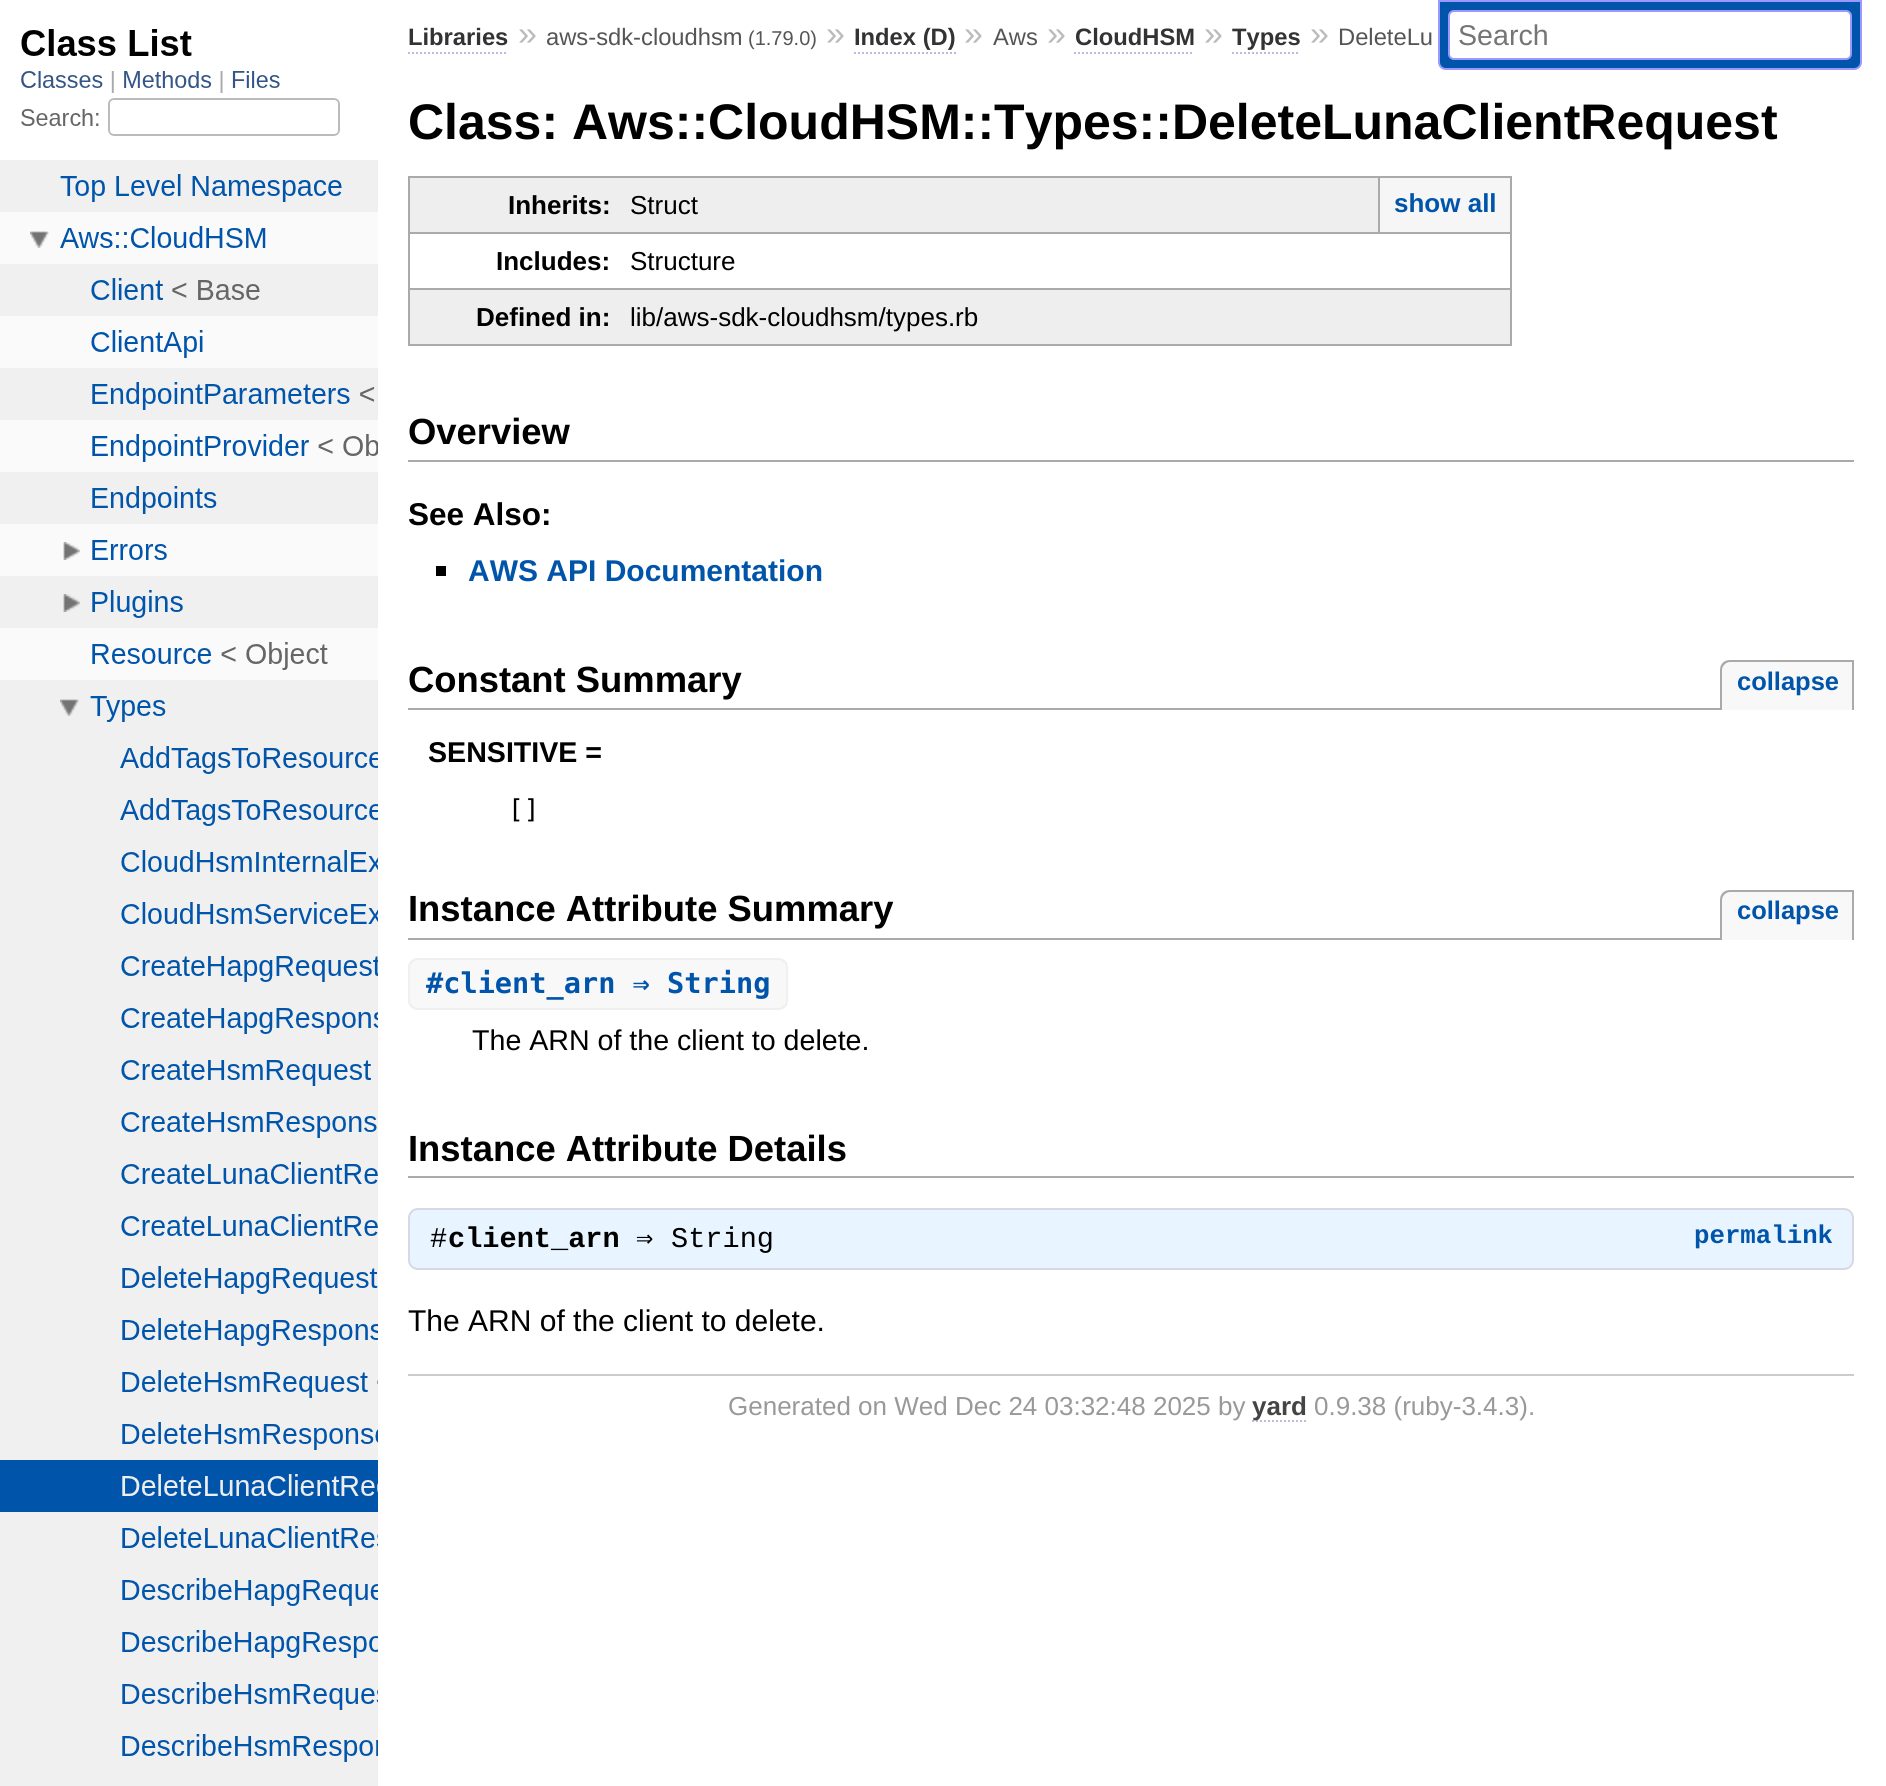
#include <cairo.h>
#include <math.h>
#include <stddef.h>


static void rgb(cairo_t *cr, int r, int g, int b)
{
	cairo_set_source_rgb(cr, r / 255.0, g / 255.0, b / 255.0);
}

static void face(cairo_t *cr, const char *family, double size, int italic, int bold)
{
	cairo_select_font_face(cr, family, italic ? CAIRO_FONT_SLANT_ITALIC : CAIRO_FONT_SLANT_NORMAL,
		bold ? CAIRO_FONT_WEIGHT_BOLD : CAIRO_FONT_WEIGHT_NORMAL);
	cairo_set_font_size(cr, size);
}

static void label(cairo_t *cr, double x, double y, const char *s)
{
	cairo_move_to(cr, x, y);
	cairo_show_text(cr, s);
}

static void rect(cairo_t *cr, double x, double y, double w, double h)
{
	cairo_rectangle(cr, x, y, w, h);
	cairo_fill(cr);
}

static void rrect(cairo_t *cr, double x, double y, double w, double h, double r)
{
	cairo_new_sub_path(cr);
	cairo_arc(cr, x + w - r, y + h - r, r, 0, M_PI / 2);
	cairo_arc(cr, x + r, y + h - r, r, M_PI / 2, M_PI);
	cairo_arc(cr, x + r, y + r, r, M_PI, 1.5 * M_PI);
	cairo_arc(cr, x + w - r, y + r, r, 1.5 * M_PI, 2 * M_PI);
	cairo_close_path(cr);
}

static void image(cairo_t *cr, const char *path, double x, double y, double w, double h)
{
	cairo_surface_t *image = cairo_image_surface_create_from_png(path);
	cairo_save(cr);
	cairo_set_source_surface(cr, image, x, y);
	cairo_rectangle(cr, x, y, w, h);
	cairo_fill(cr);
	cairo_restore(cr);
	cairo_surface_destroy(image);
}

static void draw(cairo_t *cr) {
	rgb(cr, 255, 255, 255);
	cairo_paint(cr);
	image(cr, "image0.png", 0, 29, 378, 1757);
	face(cr, "Liberation Sans", 23.75, 0, 1);
	rgb(cr, 51, 51, 51);
	label(cr, 408, 45, "Libraries");
	cairo_new_path(cr);
	cairo_move_to(cr, 408, 53);
	cairo_line_to(cr, 508, 53);
	rgb(cr, 187, 187, 221);
	cairo_set_dash(cr, (double[]){2, 2}, 2, 0);
	cairo_stroke(cr);
	face(cr, "Liberation Sans", 34, 0, 0);
	rgb(cr, 187, 187, 187);
	label(cr, 518, 45, "»");
	face(cr, "Liberation Sans", 23.75, 0, 0);
	rgb(cr, 85, 85, 85);
	label(cr, 546, 45, "aws-sdk-cloudhsm");
	face(cr, "Liberation Sans", 20, 0, 0);
	label(cr, 748, 45, "(1.79.0)");
	face(cr, "Liberation Sans", 34, 0, 0);
	rgb(cr, 187, 187, 187);
	label(cr, 826, 45, "»");
	face(cr, "Liberation Sans", 23.75, 0, 1);
	rgb(cr, 51, 51, 51);
	label(cr, 854, 45, "Index (D)");
	cairo_new_path(cr);
	cairo_move_to(cr, 854, 53);
	cairo_line_to(cr, 956, 53);
	rgb(cr, 187, 187, 221);
	cairo_stroke(cr);
	face(cr, "Liberation Sans", 34, 0, 0);
	rgb(cr, 187, 187, 187);
	label(cr, 964, 45, "»");
	face(cr, "Liberation Sans", 23.75, 0, 0);
	rgb(cr, 85, 85, 85);
	label(cr, 993, 45, "Aws");
	face(cr, "Liberation Sans", 34, 0, 0);
	rgb(cr, 187, 187, 187);
	label(cr, 1047, 45, "»");
	face(cr, "Liberation Sans", 23.75, 0, 1);
	rgb(cr, 51, 51, 51);
	label(cr, 1075, 45, "CloudHSM");
	cairo_new_path(cr);
	cairo_move_to(cr, 1074, 53);
	cairo_line_to(cr, 1194, 53);
	rgb(cr, 187, 187, 221);
	cairo_stroke(cr);
	face(cr, "Liberation Sans", 34, 0, 0);
	rgb(cr, 187, 187, 187);
	label(cr, 1204, 45, "»");
	face(cr, "Liberation Sans", 23.75, 0, 1);
	rgb(cr, 51, 51, 51);
	label(cr, 1232, 45, "Types");
	cairo_new_path(cr);
	cairo_move_to(cr, 1232, 53);
	cairo_line_to(cr, 1300, 53);
	rgb(cr, 187, 187, 221);
	cairo_stroke(cr);
	face(cr, "Liberation Sans", 34, 0, 0);
	rgb(cr, 187, 187, 187);
	label(cr, 1310, 45, "»");
	face(cr, "Liberation Sans", 23.75, 0, 0);
	rgb(cr, 85, 85, 85);
	label(cr, 1338, 45, "DeleteLu");
	rgb(cr, 0, 85, 170);
	cairo_new_path(cr);
	cairo_move_to(cr, 1439, 1);
	cairo_line_to(cr, 1861, 1);
	cairo_line_to(cr, 1861, 62);
	cairo_curve_to(cr, 1861, 66, 1858, 69, 1854, 69);
	cairo_line_to(cr, 1446, 69);
	cairo_curve_to(cr, 1442, 69, 1439, 66, 1439, 62);
	cairo_close_path(cr);
	cairo_fill_preserve(cr);
	rgb(cr, 153, 153, 255);
	cairo_set_dash(cr, NULL, 0, 0);
	cairo_stroke(cr);
	rgb(cr, 255, 255, 255);
	rrect(cr, 1449, 11, 402, 48, 5);
	cairo_fill_preserve(cr);
	rgb(cr, 153, 153, 255);
	cairo_stroke(cr);
	face(cr, "Liberation Sans", 28.6, 0, 0);
	rgb(cr, 117, 117, 117);
	label(cr, 1458, 45, "Search");
	face(cr, "Liberation Sans", 50, 0, 1);
	rgb(cr, 0, 0, 0);
	label(cr, 408, 139, "Class: Aws::CloudHSM::Types::DeleteLunaClientRequest");
	rgb(cr, 238, 238, 238);
	rect(cr, 410, 178, 968, 54);
	rgb(cr, 170, 170, 170);
	rect(cr, 408, 176, 1104, 2);
	rect(cr, 408, 176, 2, 56);
	face(cr, "Liberation Sans", 26, 0, 1);
	rgb(cr, 0, 0, 0);
	label(cr, 508, 214, "Inherits:");
	rgb(cr, 170, 170, 170);
	rect(cr, 408, 232, 1104, 2);
	rect(cr, 408, 288, 1104, 2);
	rect(cr, 1510, 176, 2, 170);
	face(cr, "Liberation Sans", 26, 0, 0);
	rgb(cr, 0, 0, 0);
	label(cr, 630, 214, "Struct");
	rgb(cr, 246, 246, 246);
	rect(cr, 1380, 178, 130, 54);
	rgb(cr, 170, 170, 170);
	rect(cr, 1378, 178, 2, 54);
	face(cr, "Liberation Sans", 26, 0, 1);
	rgb(cr, 0, 85, 170);
	label(cr, 1394, 212, "show all");
	rgb(cr, 170, 170, 170);
	rect(cr, 408, 232, 2, 56);
	rgb(cr, 0, 0, 0);
	label(cr, 496, 270, "Includes:");
	face(cr, "Liberation Sans", 26, 0, 0);
	label(cr, 630, 270, "Structure");
	rgb(cr, 238, 238, 238);
	rect(cr, 410, 290, 1100, 54);
	rgb(cr, 170, 170, 170);
	rect(cr, 408, 344, 222, 2);
	rect(cr, 408, 288, 2, 58);
	face(cr, "Liberation Sans", 26, 0, 1);
	rgb(cr, 0, 0, 0);
	label(cr, 476, 326, "Defined in:");
	rgb(cr, 170, 170, 170);
	rect(cr, 630, 344, 882, 2);
	face(cr, "Liberation Sans", 26, 0, 0);
	rgb(cr, 0, 0, 0);
	label(cr, 630, 326, "lib/aws-sdk-cloudhsm/types.rb");
	rgb(cr, 170, 170, 170);
	rect(cr, 408, 460, 1446, 2);
	face(cr, "Liberation Sans", 36.4, 0, 1);
	rgb(cr, 0, 0, 0);
	label(cr, 408, 444, "Overview");
	face(cr, "Liberation Sans", 31.5, 0, 1);
	label(cr, 408, 525, "See Also:");
	rect(cr, 436, 566, 10, 10);
	face(cr, "Liberation Sans", 30, 0, 1);
	rgb(cr, 0, 85, 170);
	label(cr, 468, 581, "AWS API Documentation");
	rgb(cr, 170, 170, 170);
	rect(cr, 408, 708, 1312, 2);
	face(cr, "Liberation Sans", 36.4, 0, 1);
	rgb(cr, 0, 0, 0);
	label(cr, 408, 692, "Constant Summary");
	rgb(cr, 248, 248, 248);
	cairo_new_path(cr);
	cairo_move_to(cr, 1730, 660);
	cairo_line_to(cr, 1854, 660);
	cairo_line_to(cr, 1854, 710);
	cairo_line_to(cr, 1720, 710);
	cairo_line_to(cr, 1720, 670);
	cairo_curve_to(cr, 1720, 664.5, 1724.5, 660, 1730, 660);
	cairo_close_path(cr);
	cairo_fill(cr);
	rgb(cr, 170, 170, 170);
	cairo_set_fill_rule(cr, CAIRO_FILL_RULE_EVEN_ODD);
	cairo_new_path(cr);
	cairo_move_to(cr, 1730, 660);
	cairo_line_to(cr, 1854, 660);
	cairo_line_to(cr, 1854, 710);
	cairo_line_to(cr, 1720, 710);
	cairo_line_to(cr, 1720, 670);
	cairo_curve_to(cr, 1720, 664, 1724, 660, 1730, 660);
	cairo_close_path(cr);
	cairo_move_to(cr, 1730, 662);
	cairo_line_to(cr, 1852, 662);
	cairo_line_to(cr, 1852, 710);
	cairo_line_to(cr, 1722, 710);
	cairo_line_to(cr, 1722, 670);
	cairo_curve_to(cr, 1722, 666, 1726, 662, 1730, 662);
	cairo_close_path(cr);
	cairo_fill(cr);
	face(cr, "Liberation Sans", 25.5, 0, 1);
	rgb(cr, 0, 85, 170);
	label(cr, 1737, 690, "collapse");
	face(cr, "Liberation Sans", 28.6, 0, 1);
	rgb(cr, 0, 0, 0);
	label(cr, 428, 762, "SENSITIVE =");
	face(cr, "DejaVu Sans Mono", 26, 0, 0);
	label(cr, 508, 818, "[]");
	rgb(cr, 170, 170, 170);
	rect(cr, 408, 938, 1312, 2);
	face(cr, "Liberation Sans", 36.4, 0, 1);
	rgb(cr, 0, 0, 0);
	label(cr, 408, 921, "Instance Attribute Summary");
	rgb(cr, 248, 248, 248);
	cairo_new_path(cr);
	cairo_move_to(cr, 1730, 890);
	cairo_line_to(cr, 1854, 890);
	cairo_line_to(cr, 1854, 940);
	cairo_line_to(cr, 1720, 940);
	cairo_line_to(cr, 1720, 900);
	cairo_curve_to(cr, 1720, 894.5, 1724.5, 890, 1730, 890);
	cairo_close_path(cr);
	cairo_fill(cr);
	rgb(cr, 170, 170, 170);
	cairo_new_path(cr);
	cairo_move_to(cr, 1730, 890);
	cairo_line_to(cr, 1854, 890);
	cairo_line_to(cr, 1854, 940);
	cairo_line_to(cr, 1720, 940);
	cairo_line_to(cr, 1720, 900);
	cairo_curve_to(cr, 1720, 894, 1724, 890, 1730, 890);
	cairo_close_path(cr);
	cairo_move_to(cr, 1730, 892);
	cairo_line_to(cr, 1852, 892);
	cairo_line_to(cr, 1852, 940);
	cairo_line_to(cr, 1722, 940);
	cairo_line_to(cr, 1722, 900);
	cairo_curve_to(cr, 1722, 896, 1726, 892, 1730, 892);
	cairo_close_path(cr);
	cairo_fill(cr);
	face(cr, "Liberation Sans", 25.5, 0, 1);
	rgb(cr, 0, 85, 170);
	label(cr, 1737, 919, "collapse");
	rgb(cr, 248, 248, 248);
	cairo_new_path(cr);
	cairo_move_to(cr, 418, 958);
	cairo_line_to(cr, 444, 958);
	cairo_line_to(cr, 444, 1010);
	cairo_line_to(cr, 418, 1010);
	cairo_curve_to(cr, 412.5, 1010, 408, 1005.5, 408, 1000);
	cairo_line_to(cr, 408, 968);
	cairo_curve_to(cr, 408, 962.5, 412.5, 958, 418, 958);
	cairo_close_path(cr);
	cairo_fill(cr);
	rgb(cr, 240, 240, 240);
	cairo_new_path(cr);
	cairo_move_to(cr, 418, 958);
	cairo_line_to(cr, 444, 958);
	cairo_line_to(cr, 444, 1010);
	cairo_line_to(cr, 418, 1010);
	cairo_curve_to(cr, 412, 1010, 408, 1006, 408, 1000);
	cairo_line_to(cr, 408, 968);
	cairo_curve_to(cr, 408, 962, 412, 958, 418, 958);
	cairo_close_path(cr);
	cairo_move_to(cr, 418, 960);
	cairo_line_to(cr, 444, 960);
	cairo_line_to(cr, 444, 1008);
	cairo_line_to(cr, 418, 1008);
	cairo_curve_to(cr, 414, 1008, 410, 1004, 410, 1000);
	cairo_line_to(cr, 410, 968);
	cairo_curve_to(cr, 410, 964, 414, 960, 418, 960);
	cairo_close_path(cr);
	cairo_fill(cr);
	rgb(cr, 248, 248, 248);
	rect(cr, 444, 960, 172, 48);
	cairo_new_path(cr);
	cairo_move_to(cr, 616, 958);
	cairo_line_to(cr, 778, 958);
	cairo_curve_to(cr, 783.5, 958, 788, 962.5, 788, 968);
	cairo_line_to(cr, 788, 1000);
	cairo_curve_to(cr, 788, 1005.5, 783.5, 1010, 778, 1010);
	cairo_line_to(cr, 616, 1010);
	cairo_close_path(cr);
	cairo_fill(cr);
	rgb(cr, 240, 240, 240);
	cairo_new_path(cr);
	cairo_move_to(cr, 616, 958);
	cairo_line_to(cr, 778, 958);
	cairo_curve_to(cr, 784, 958, 788, 962, 788, 968);
	cairo_line_to(cr, 788, 1000);
	cairo_curve_to(cr, 788, 1006, 784, 1010, 778, 1010);
	cairo_line_to(cr, 616, 1010);
	cairo_close_path(cr);
	cairo_move_to(cr, 616, 960);
	cairo_line_to(cr, 778, 960);
	cairo_curve_to(cr, 782, 960, 786, 964, 786, 968);
	cairo_line_to(cr, 786, 1000);
	cairo_curve_to(cr, 786, 1004, 782, 1008, 778, 1008);
	cairo_line_to(cr, 616, 1008);
	cairo_close_path(cr);
	cairo_fill(cr);
	face(cr, "DejaVu Sans Mono", 28.6, 0, 1);
	rgb(cr, 0, 85, 170);
	label(cr, 426, 993, "#client_arn ⇒ String");
	rgb(cr, 240, 240, 240);
	rect(cr, 444, 958, 172, 2);
	rect(cr, 444, 1008, 172, 2);
	face(cr, "Liberation Sans", 28.6, 0, 0);
	rgb(cr, 0, 0, 0);
	label(cr, 472, 1050, "The ARN of the client to delete.");
	rgb(cr, 170, 170, 170);
	rect(cr, 408, 1176, 1446, 2);
	face(cr, "Liberation Sans", 36.4, 0, 1);
	rgb(cr, 0, 0, 0);
	label(cr, 408, 1161, "Instance Attribute Details");
	rgb(cr, 232, 244, 255);
	rrect(cr, 409, 1209, 1444, 60, 9);
	cairo_fill_preserve(cr);
	rgb(cr, 216, 216, 229);
	cairo_stroke(cr);
	face(cr, "Liberation Mono", 28.6, 0, 0);
	rgb(cr, 0, 0, 0);
	label(cr, 430, 1247, "#");
	face(cr, "Liberation Mono", 28.6, 0, 1);
	label(cr, 448, 1247, "client_arn");
	face(cr, "DejaVu Sans Mono", 28.6, 0, 0);
	label(cr, 636, 1247, "⇒");
	face(cr, "Liberation Mono", 28.6, 0, 0);
	label(cr, 671, 1247, "String");
	face(cr, "Liberation Mono", 25.75, 0, 1);
	rgb(cr, 0, 85, 170);
	label(cr, 1694, 1243, "permalink");
	face(cr, "Liberation Sans", 30, 0, 0);
	rgb(cr, 0, 0, 0);
	label(cr, 408, 1331, "The ARN of the client to delete.");
	rgb(cr, 204, 204, 204);
	rect(cr, 408, 1374, 1446, 2);
	face(cr, "Liberation Sans", 26, 0, 0);
	rgb(cr, 153, 153, 153);
	label(cr, 728, 1415, "Generated on Wed Dec 24 03:32:48 2025 by");
	cairo_new_path(cr);
	cairo_move_to(cr, 1252, 1421);
	cairo_line_to(cr, 1308, 1421);
	rgb(cr, 187, 187, 221);
	cairo_set_dash(cr, (double[]){2, 2}, 2, 0);
	cairo_stroke(cr);
	face(cr, "Liberation Sans", 26, 0, 1);
	rgb(cr, 68, 68, 68);
	label(cr, 1252, 1415, "yard");
	face(cr, "Liberation Sans", 26, 0, 0);
	rgb(cr, 153, 153, 153);
	label(cr, 1314, 1415, "0.9.38 (ruby-3.4.3).");
}

int main(void) {
	cairo_surface_t *surface = cairo_image_surface_create(CAIRO_FORMAT_RGB24, 1886, 1786);
	cairo_t *cr = cairo_create(surface);
	cairo_font_options_t *options = cairo_font_options_create();
	cairo_font_options_set_hint_metrics(options, CAIRO_HINT_METRICS_OFF);
	cairo_font_options_set_hint_style(options, CAIRO_HINT_STYLE_NONE);
	cairo_set_font_options(cr, options);
	cairo_set_miter_limit(cr, 4);
	draw(cr);
	cairo_surface_write_to_png(surface, "render.png");
	cairo_font_options_destroy(options);
	cairo_destroy(cr);
	cairo_surface_destroy(surface);
	return 0;
}
